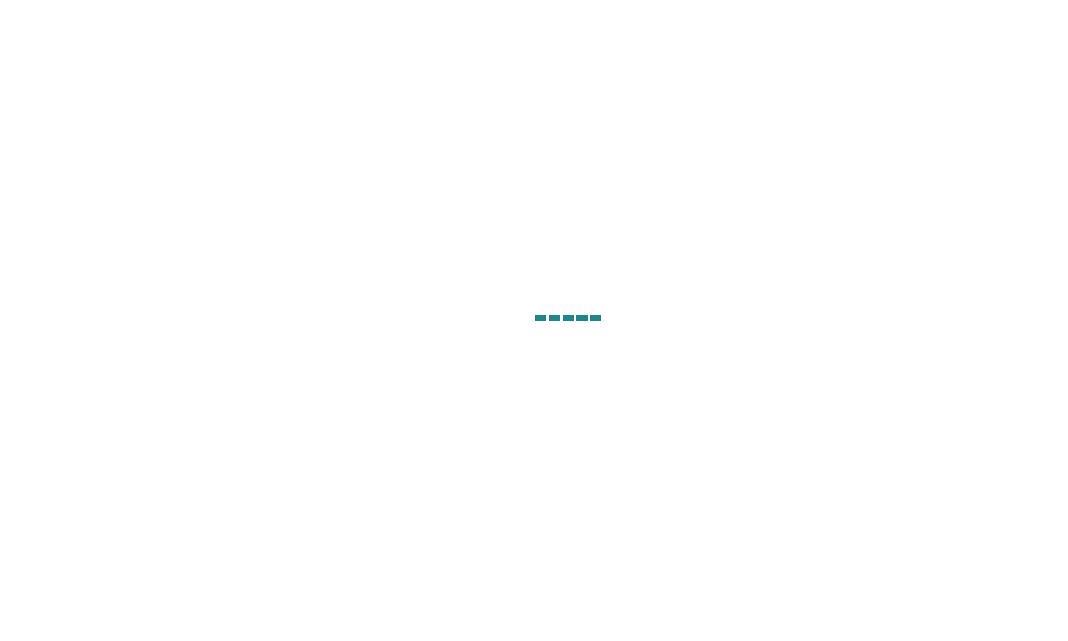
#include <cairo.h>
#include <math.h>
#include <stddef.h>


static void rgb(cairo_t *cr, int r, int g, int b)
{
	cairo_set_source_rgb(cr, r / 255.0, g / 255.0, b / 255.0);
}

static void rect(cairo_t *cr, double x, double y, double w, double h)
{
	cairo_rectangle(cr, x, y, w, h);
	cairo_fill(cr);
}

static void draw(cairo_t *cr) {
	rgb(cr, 255, 255, 255);
	cairo_paint(cr);
	rgb(cr, 33, 133, 140);
	rect(cr, 535, 315, 11, 6);
	rect(cr, 549, 315, 11, 6);
	rect(cr, 563, 315, 11, 6);
	rect(cr, 576, 315, 12, 6);
	rect(cr, 590, 315, 11, 6);
}

int main(void) {
	cairo_surface_t *surface = cairo_image_surface_create(CAIRO_FORMAT_RGB24, 1068, 641);
	cairo_t *cr = cairo_create(surface);
	cairo_font_options_t *options = cairo_font_options_create();
	cairo_font_options_set_hint_metrics(options, CAIRO_HINT_METRICS_OFF);
	cairo_font_options_set_hint_style(options, CAIRO_HINT_STYLE_NONE);
	cairo_set_font_options(cr, options);
	cairo_set_miter_limit(cr, 4);
	draw(cr);
	cairo_surface_write_to_png(surface, "render.png");
	cairo_font_options_destroy(options);
	cairo_destroy(cr);
	cairo_surface_destroy(surface);
	return 0;
}
